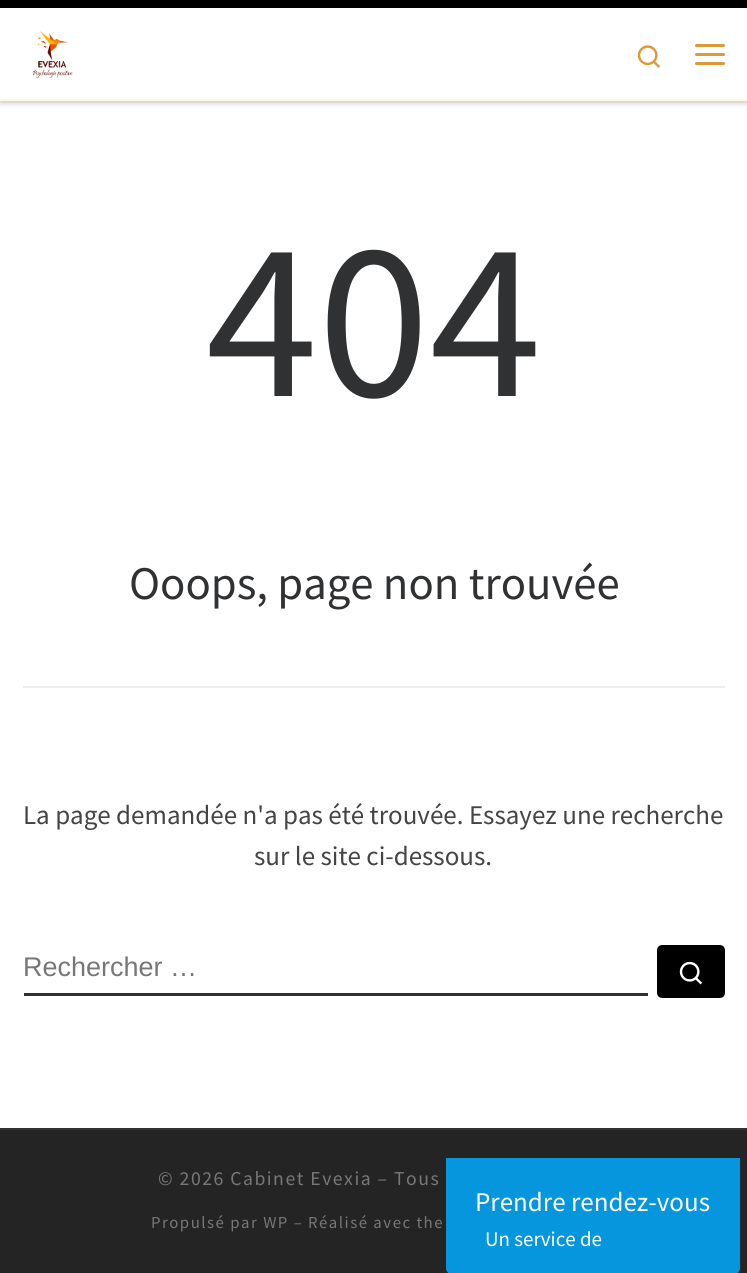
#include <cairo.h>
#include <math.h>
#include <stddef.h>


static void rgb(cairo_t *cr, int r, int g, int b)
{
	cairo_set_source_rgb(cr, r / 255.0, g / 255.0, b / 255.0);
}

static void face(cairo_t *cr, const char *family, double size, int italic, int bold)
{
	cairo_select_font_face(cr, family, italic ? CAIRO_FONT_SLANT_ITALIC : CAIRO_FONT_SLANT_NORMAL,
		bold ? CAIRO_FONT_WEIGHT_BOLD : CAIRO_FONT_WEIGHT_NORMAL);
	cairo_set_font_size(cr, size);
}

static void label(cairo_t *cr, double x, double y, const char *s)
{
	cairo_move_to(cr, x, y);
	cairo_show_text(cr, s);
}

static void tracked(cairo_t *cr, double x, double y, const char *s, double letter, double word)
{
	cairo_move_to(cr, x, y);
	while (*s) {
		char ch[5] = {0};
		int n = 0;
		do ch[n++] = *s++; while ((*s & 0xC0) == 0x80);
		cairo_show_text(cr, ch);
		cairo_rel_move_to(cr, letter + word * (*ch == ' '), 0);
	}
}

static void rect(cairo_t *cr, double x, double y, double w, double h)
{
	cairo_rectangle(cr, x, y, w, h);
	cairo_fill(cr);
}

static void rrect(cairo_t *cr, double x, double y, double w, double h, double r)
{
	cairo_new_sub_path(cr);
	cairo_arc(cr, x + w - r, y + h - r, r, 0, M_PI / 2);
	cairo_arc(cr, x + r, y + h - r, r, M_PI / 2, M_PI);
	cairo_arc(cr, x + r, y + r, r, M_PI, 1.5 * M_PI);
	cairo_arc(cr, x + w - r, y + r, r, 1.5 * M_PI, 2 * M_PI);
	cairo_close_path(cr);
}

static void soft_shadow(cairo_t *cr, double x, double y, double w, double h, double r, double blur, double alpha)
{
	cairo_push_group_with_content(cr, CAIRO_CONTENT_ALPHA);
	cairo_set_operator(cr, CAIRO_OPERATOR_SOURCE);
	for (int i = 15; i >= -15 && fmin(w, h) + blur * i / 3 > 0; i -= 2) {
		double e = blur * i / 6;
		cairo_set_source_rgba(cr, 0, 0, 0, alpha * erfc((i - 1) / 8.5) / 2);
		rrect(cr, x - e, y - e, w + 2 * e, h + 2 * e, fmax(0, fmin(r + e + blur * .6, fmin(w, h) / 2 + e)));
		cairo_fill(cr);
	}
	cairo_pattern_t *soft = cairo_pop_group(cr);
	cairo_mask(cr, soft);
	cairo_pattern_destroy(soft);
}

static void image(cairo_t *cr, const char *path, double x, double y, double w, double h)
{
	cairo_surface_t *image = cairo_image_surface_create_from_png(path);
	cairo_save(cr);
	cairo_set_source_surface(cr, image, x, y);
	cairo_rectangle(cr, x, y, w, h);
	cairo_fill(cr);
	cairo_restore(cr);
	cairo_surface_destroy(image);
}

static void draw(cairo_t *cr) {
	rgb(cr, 255, 255, 255);
	cairo_paint(cr);
	rgb(cr, 102, 102, 102);
	soft_shadow(cr, 0, 3, 747, 102, 0, 1.5, 0.08);
	rgb(cr, 0, 0, 0);
	rect(cr, 0, 0, 747, 8);
	cairo_set_source_rgba(cr, 0.867, 0.6, 0.2, 0.09);
	rect(cr, 0, 101, 747, 2);
	cairo_set_source_rgba(cr, 1, 1, 1, 0.15);
	rect(cr, 0, 101, 747, 1);
	rgb(cr, 0, 0, 0);
	soft_shadow(cr, 0, 8, 747, 93, 0, 4, 0.2);
	rgb(cr, 255, 255, 255);
	rect(cr, 0, 8, 747, 91);
	image(cr, "image0.png", 32, 31, 41, 48);
	image(cr, "image1.png", 637, 45, 24, 23);
	rgb(cr, 221, 153, 51);
	rrect(cr, 695, 44, 30, 3, 1.5);
	cairo_fill(cr);
	rrect(cr, 695, 53, 30, 3, 1.5);
	cairo_fill(cr);
	rrect(cr, 695, 62, 30, 3, 1.5);
	cairo_fill(cr);
	rgb(cr, 252, 247, 240);
	rect(cr, 0, 99, 747, 2);
	face(cr, "Source Sans Pro", 225, 0, 0);
	rgb(cr, 48, 49, 51);
	label(cr, 206, 396, "404");
	face(cr, "Source Sans Pro", 46.75, 0, 0);
	label(cr, 129, 599, "Ooops, page non trouvée");
	rgb(cr, 236, 238, 239);
	rect(cr, 23, 686, 702, 2);
	face(cr, "Source Sans Pro", 27, 0, 0);
	rgb(cr, 68, 68, 68);
	label(cr, 23, 824, "La page demandée n'a pas été trouvée. Essayez une recherche");
	label(cr, 254, 865, "sur le site ci-dessous.");
	rgb(cr, 49, 49, 49);
	rect(cr, 24, 993, 624, 3);
	face(cr, "Liberation Sans", 27, 0, 0);
	rgb(cr, 119, 119, 119);
	label(cr, 23, 976, "Rechercher …");
	rgb(cr, 0, 0, 0);
	rrect(cr, 658.5, 946.5, 65, 50, 3.5);
	cairo_fill_preserve(cr);
	cairo_set_line_width(cr, 3);
	cairo_stroke(cr);
	image(cr, "image2.png", 679, 961, 24, 24);
	rgb(cr, 49, 49, 49);
	rect(cr, 0, 1128, 747, 2);
	rgb(cr, 36, 36, 36);
	rect(cr, 0, 1130, 747, 143);
	face(cr, "Source Sans Pro", 19.7, 0, 0);
	rgb(cr, 119, 119, 119);
	tracked(cr, 158, 1185, "© 2026 Cabinet Evexia – Tous", 1.5, 0);
	face(cr, "Source Sans Pro", 16.75, 0, 0);
	tracked(cr, 151, 1228, "Propulsé par WP – Réalisé avec the", 1.5, 0);
	rgb(cr, 5, 150, 222);
	cairo_new_path(cr);
	cairo_move_to(cr, 446, 1158);
	cairo_line_to(cr, 740, 1158);
	cairo_line_to(cr, 740, 1268);
	cairo_curve_to(cr, 740, 1271.5, 737.5, 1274, 734, 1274);
	cairo_line_to(cr, 452, 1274);
	cairo_curve_to(cr, 448.5, 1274, 446, 1271.5, 446, 1268);
	cairo_close_path(cr);
	cairo_fill(cr);
	face(cr, "Source Sans Pro", 27, 0, 0);
	rgb(cr, 255, 255, 255);
	label(cr, 475, 1211, "Prendre rendez-vous");
	face(cr, "Source Sans Pro", 21, 0, 0);
	label(cr, 485, 1246, "Un service de");
}

int main(void) {
	cairo_surface_t *surface = cairo_image_surface_create(CAIRO_FORMAT_RGB24, 747, 1273);
	cairo_t *cr = cairo_create(surface);
	cairo_font_options_t *options = cairo_font_options_create();
	cairo_font_options_set_hint_metrics(options, CAIRO_HINT_METRICS_OFF);
	cairo_font_options_set_hint_style(options, CAIRO_HINT_STYLE_NONE);
	cairo_set_font_options(cr, options);
	cairo_set_miter_limit(cr, 4);
	draw(cr);
	cairo_surface_write_to_png(surface, "render.png");
	cairo_font_options_destroy(options);
	cairo_destroy(cr);
	cairo_surface_destroy(surface);
	return 0;
}
